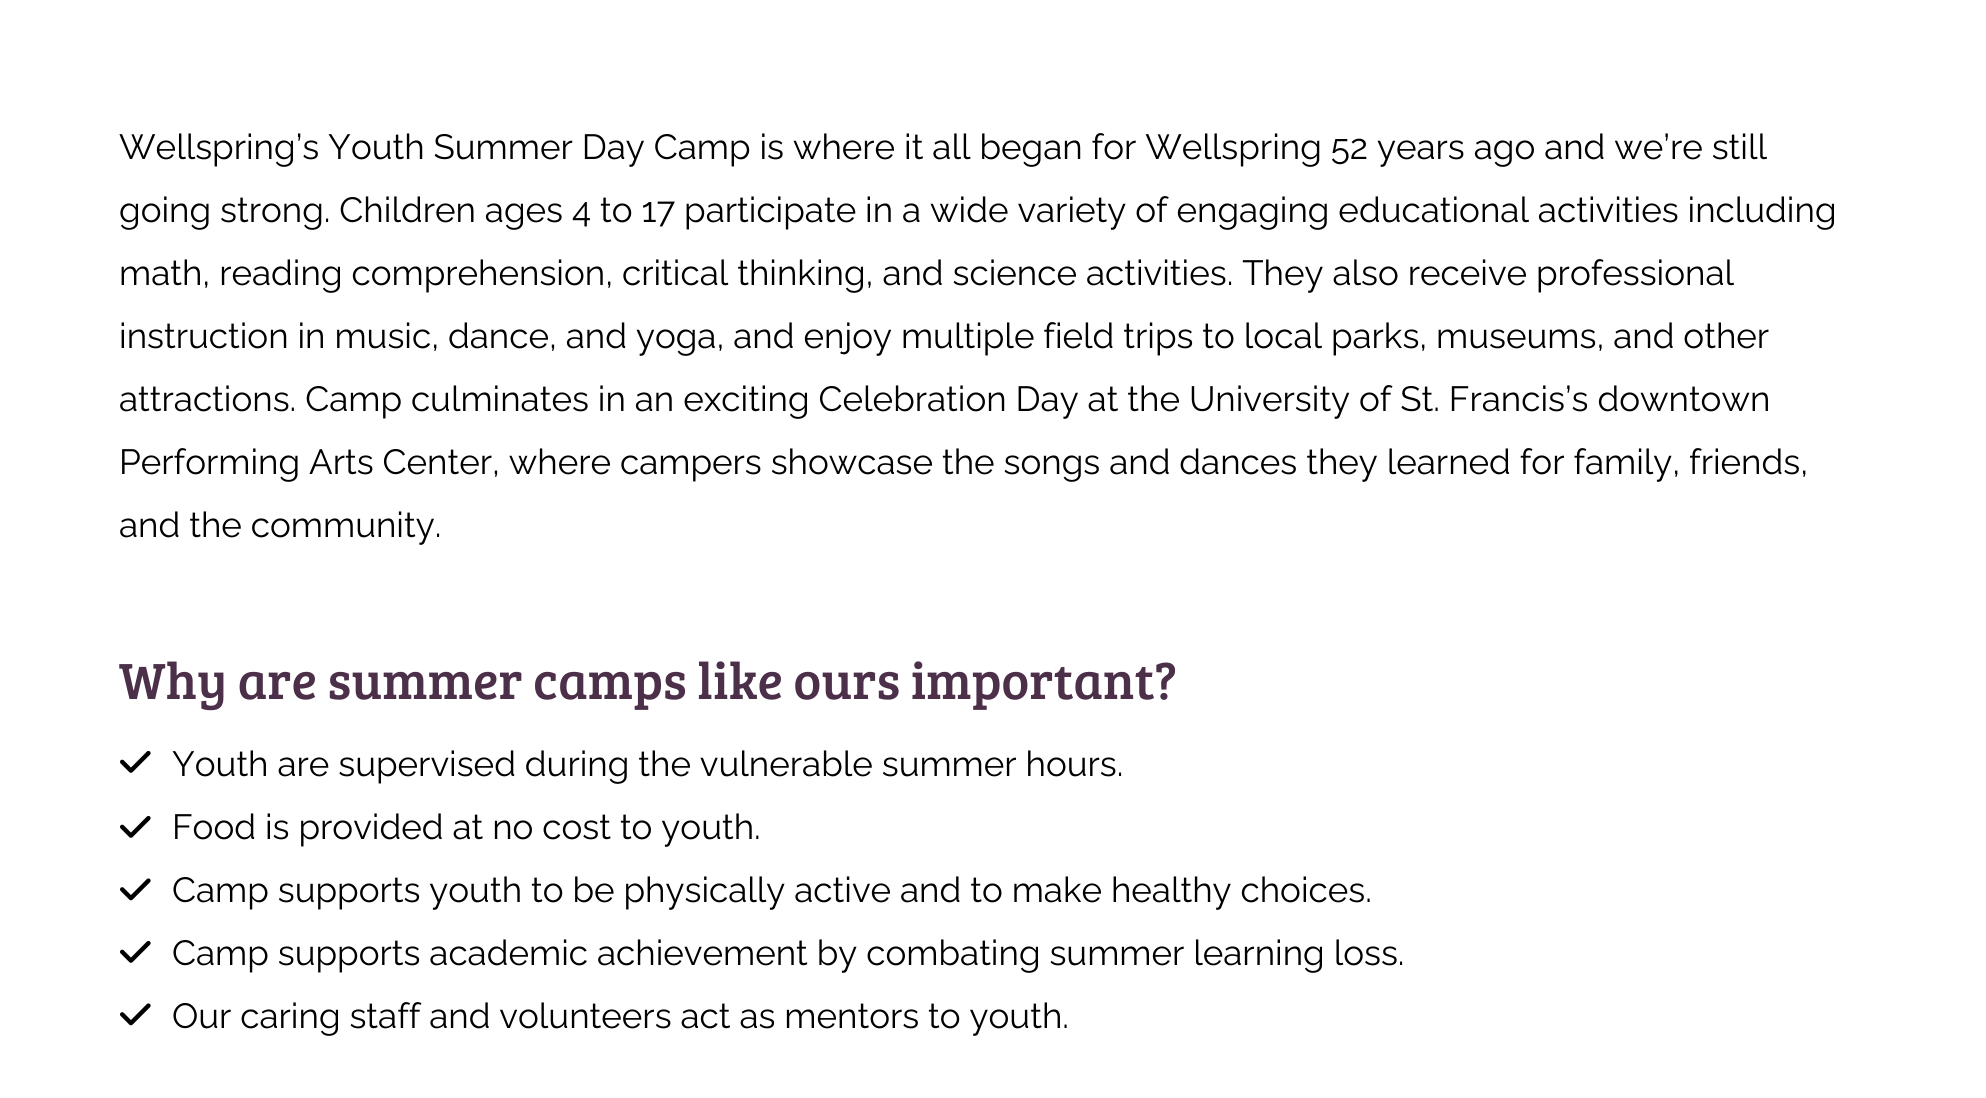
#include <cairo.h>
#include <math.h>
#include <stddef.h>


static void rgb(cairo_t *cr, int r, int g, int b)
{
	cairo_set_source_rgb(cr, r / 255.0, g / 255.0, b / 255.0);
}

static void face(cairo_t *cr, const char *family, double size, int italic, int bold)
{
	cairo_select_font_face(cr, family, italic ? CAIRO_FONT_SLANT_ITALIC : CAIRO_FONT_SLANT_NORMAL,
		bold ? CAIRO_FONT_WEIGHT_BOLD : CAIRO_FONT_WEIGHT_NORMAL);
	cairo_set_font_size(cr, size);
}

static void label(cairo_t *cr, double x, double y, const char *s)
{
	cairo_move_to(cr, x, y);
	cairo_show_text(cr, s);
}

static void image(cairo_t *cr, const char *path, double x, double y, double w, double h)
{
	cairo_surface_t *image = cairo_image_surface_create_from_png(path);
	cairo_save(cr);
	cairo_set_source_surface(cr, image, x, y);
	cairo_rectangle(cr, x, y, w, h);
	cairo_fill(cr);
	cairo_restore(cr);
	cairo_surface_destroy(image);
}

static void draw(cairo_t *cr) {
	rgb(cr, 255, 255, 255);
	cairo_paint(cr);
	face(cr, "Raleway", 35, 0, 0);
	rgb(cr, 0, 0, 0);
	label(cr, 119, 159, "Wellspring’s Youth Summer Day Camp is where it all began for Wellspring 52 years ago and we’re still");
	label(cr, 119, 222, "going strong. Children ages 4 to 17 participate in a wide variety of engaging educational activities including");
	label(cr, 119, 285, "math, reading comprehension, critical thinking, and science activities. They also receive professional");
	label(cr, 119, 348, "instruction in music, dance, and yoga, and enjoy multiple field trips to local parks, museums, and other");
	label(cr, 119, 411, "attractions. Camp culminates in an exciting Celebration Day at the University of St. Francis’s downtown");
	label(cr, 119, 474, "Performing Arts Center, where campers showcase the songs and dances they learned for family, friends,");
	label(cr, 119, 537, "and the community.");
	face(cr, "Bree Serif", 52.5, 0, 0);
	rgb(cr, 76, 47, 72);
	label(cr, 119, 699, "Why are summer camps like ours important?");
	image(cr, "image0.png", 120, 751, 31, 22);
	face(cr, "Raleway", 35, 0, 0);
	rgb(cr, 0, 0, 0);
	label(cr, 172, 776, "Youth are supervised during the vulnerable summer hours.");
	image(cr, "image0.png", 120, 816, 31, 22);
	label(cr, 172, 839, "Food is provided at no cost to youth.");
	image(cr, "image1.png", 120, 878, 31, 23);
	label(cr, 172, 902, "Camp supports youth to be physically active and to make healthy choices.");
	image(cr, "image0.png", 120, 941, 31, 22);
	label(cr, 172, 965, "Camp supports academic achievement by combating summer learning loss.");
	image(cr, "image1.png", 120, 1003, 31, 23);
	label(cr, 172, 1028, "Our caring staff and volunteers act as mentors to youth.");
}

int main(void) {
	cairo_surface_t *surface = cairo_image_surface_create(CAIRO_FORMAT_RGB24, 1986, 1098);
	cairo_t *cr = cairo_create(surface);
	cairo_font_options_t *options = cairo_font_options_create();
	cairo_font_options_set_hint_metrics(options, CAIRO_HINT_METRICS_OFF);
	cairo_font_options_set_hint_style(options, CAIRO_HINT_STYLE_NONE);
	cairo_set_font_options(cr, options);
	cairo_set_miter_limit(cr, 4);
	draw(cr);
	cairo_surface_write_to_png(surface, "render.png");
	cairo_font_options_destroy(options);
	cairo_destroy(cr);
	cairo_surface_destroy(surface);
	return 0;
}
